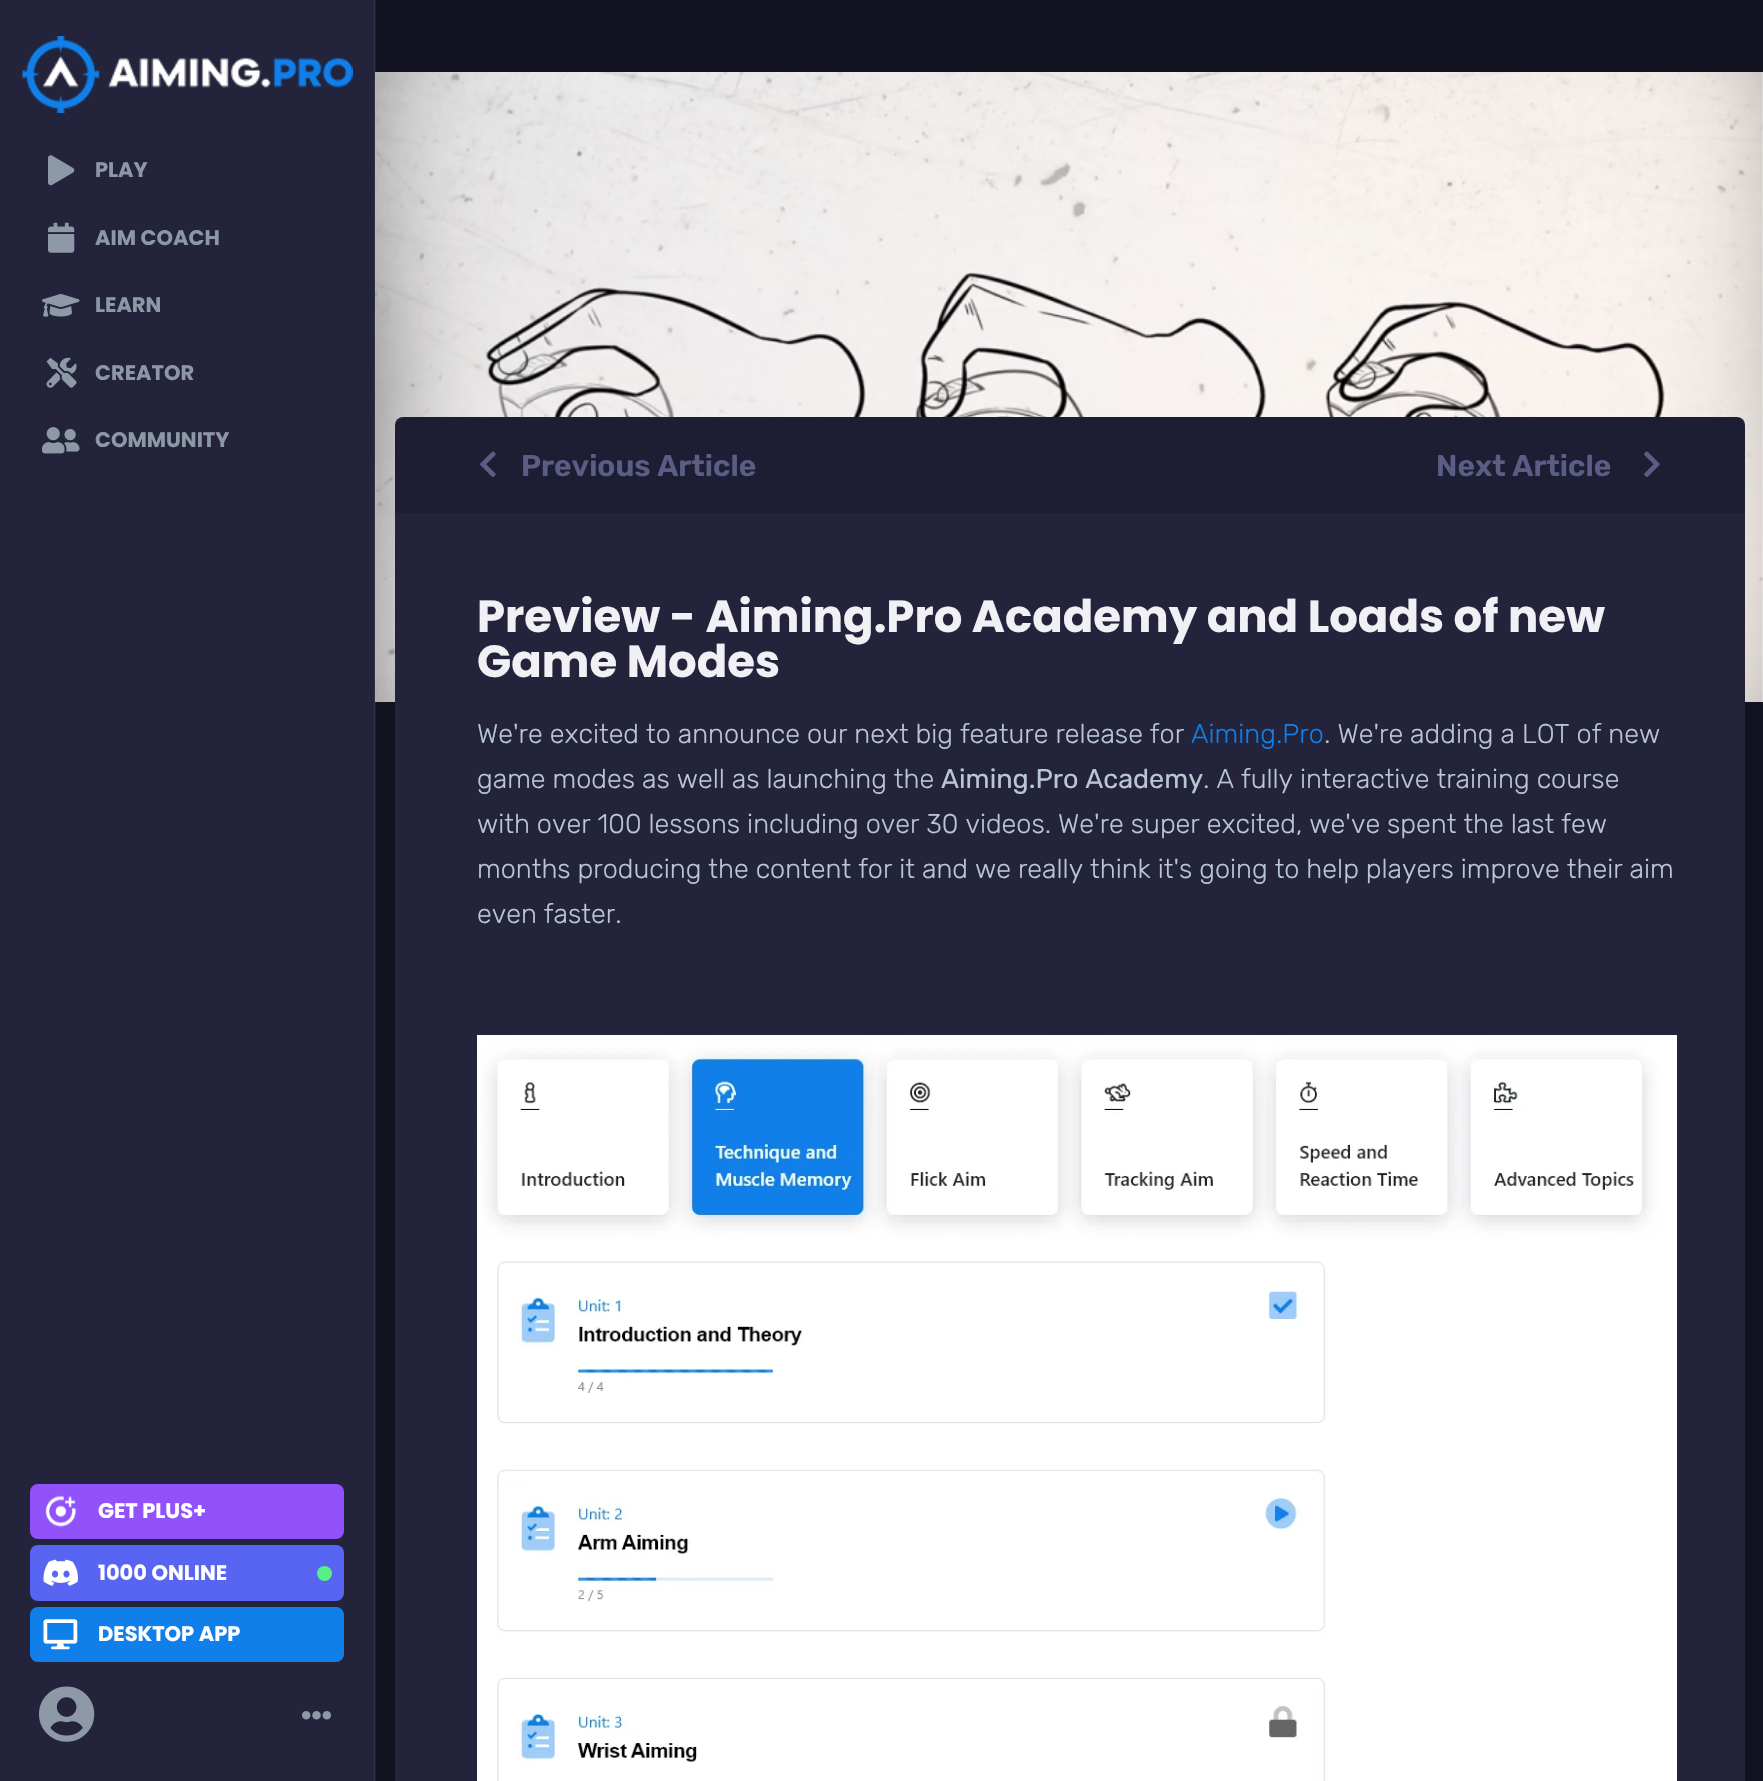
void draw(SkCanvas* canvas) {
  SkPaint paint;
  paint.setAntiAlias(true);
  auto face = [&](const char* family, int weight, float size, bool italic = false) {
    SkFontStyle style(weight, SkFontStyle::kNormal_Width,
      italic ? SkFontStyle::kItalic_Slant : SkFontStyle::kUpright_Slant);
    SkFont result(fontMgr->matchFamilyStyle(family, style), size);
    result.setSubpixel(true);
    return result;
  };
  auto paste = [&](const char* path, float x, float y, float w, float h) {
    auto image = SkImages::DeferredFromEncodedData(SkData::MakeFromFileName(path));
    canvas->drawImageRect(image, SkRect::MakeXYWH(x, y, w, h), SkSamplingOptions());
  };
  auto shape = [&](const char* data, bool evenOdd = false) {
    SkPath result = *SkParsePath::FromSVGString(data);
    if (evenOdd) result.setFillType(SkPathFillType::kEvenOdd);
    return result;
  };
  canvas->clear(0xff121220);
  paint.setColor(0xff23243b);
  canvas->drawRect(SkRect::MakeXYWH(0, 0, 375, 1781), paint);
  paste("img/12.png", 375, 72, 1388, 630);
  paint.setColor(0x0dffffff);
  canvas->drawRect(SkRect::MakeXYWH(374, 0, 2, 1781), paint);
  paste("img/1.png", 22, 36, 331, 77);
  paste("img/2.png", 48, 155, 27, 31);
  paste("img/3.png", 48, 222, 27, 31);
  paste("img/4.png", 42, 294, 38, 23);
  paste("img/5.png", 46, 357, 31, 31);
  paste("img/6.png", 42, 427, 38, 27);
  paint.setColor(0xff9152fc);
  canvas->drawRoundRect(SkRect::MakeXYWH(30, 1484, 314, 55), 8, 8, paint);
  paste("img/7.png", 45, 1495, 31, 32);
  paint.setColor(0xff5865f2);
  canvas->drawRoundRect(SkRect::MakeXYWH(30, 1545, 314, 56), 8, 8, paint);
  paste("img/8.png", 43, 1559, 35, 27);
  paint.setColor(0xff57f287);
  canvas->drawCircle(324.5f, 1573.5f, 7.5f, paint);
  paint.setColor(0xff107fea);
  canvas->drawRoundRect(SkRect::MakeXYWH(30, 1607, 314, 55), 8, 8, paint);
  paste("img/9.png", 43, 1619, 35, 31);
  paste("img/10.png", 39, 1686, 56, 56);
  paste("img/11.png", 302, 1711, 29, 9);
  paint.setColor(0xff23243b);
  canvas->drawRoundRect(SkRect::MakeXYWH(395, 417, 1350, 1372), 8, 8, paint);
  paint.setColor(0xff1d1e34);
  canvas->drawPath(shape("M407 417H1733C1739.5 417 1745 422.5 1745 429V513H395V429C395 422.5 400.5 417 407 417Z"), paint);
  paste("img/13.png", 480, 451, 16, 26);
  paste("img/14.png", 1644, 451, 16, 26);
  paste("img/15.png", 477, 1035, 1200, 746);
  auto f0 = face("Poppins", 700, 21);
  paint.setColor(0xff8d98a6);
  {
    const struct { const char* s; float x, y; } items[] = {
      {"PLAY", 95, 177},
      {"AIM COACH", 95, 245},
      {"LEARN", 95, 312},
      {"CREATOR", 95, 380},
      {"COMMUNITY", 95, 447},
    };
    for (auto [s, x, y] : items) {
      canvas->drawString(s, x, y, f0, paint);
    }
  }
  paint.setColor(0xffffffff);
  {
    const struct { const char* s; float x, y; } items[] = {
      {"GET PLUS+", 98, 1518},
      {"1000 ONLINE", 98, 1580},
      {"DESKTOP APP", 98, 1641},
    };
    for (auto [s, x, y] : items) {
      canvas->drawString(s, x, y, f0, paint);
    }
  }
  auto f1 = face("Rubik", 600, 30);
  paint.setColor(0xff5b5d85);
  canvas->drawString("Previous Article", 521, 476, f1, paint);
  canvas->drawString("Next Article", 1436, 476, f1, paint);
  auto f2 = face("Poppins", 700, 45);
  paint.setColor(0xfff0f0f5);
  canvas->drawString("Preview - Aiming.Pro Academy and Loads of new", 477, 632, f2, paint);
  canvas->drawString("Game Modes", 477, 677, f2, paint);
  auto f3 = face("Rubik", 300, 27);
  paint.setColor(0xffbac6d1);
  canvas->drawString("We're excited to announce our next big feature release for", 477, 743, f3, paint);
  paint.setColor(0xff107fea);
  canvas->drawString("Aiming.Pro", 1191, 743, f3, paint);
  paint.setColor(0xffbac6d1);
  canvas->drawString(". We're adding a LOT of new", 1324, 743, f3, paint);
  canvas->drawString("game modes as well as launching the", 477, 788, f3, paint);
  auto f4 = face("Rubik", 400, 27);
  canvas->drawString("Aiming.Pro Academy", 941, 788, f4, paint);
  {
    const struct { const char* s; float x, y; } items[] = {
      {". A fully interactive training course", 1203, 788},
      {"with over 100 lessons including over 30 videos. We're super excited, we've spent the last few", 477, 833},
      {"months producing the content for it and we really think it's going to help players improve their aim", 477, 878},
      {"even faster.", 477, 923},
    };
    for (auto [s, x, y] : items) {
      canvas->drawString(s, x, y, f3, paint);
    }
  }
}
